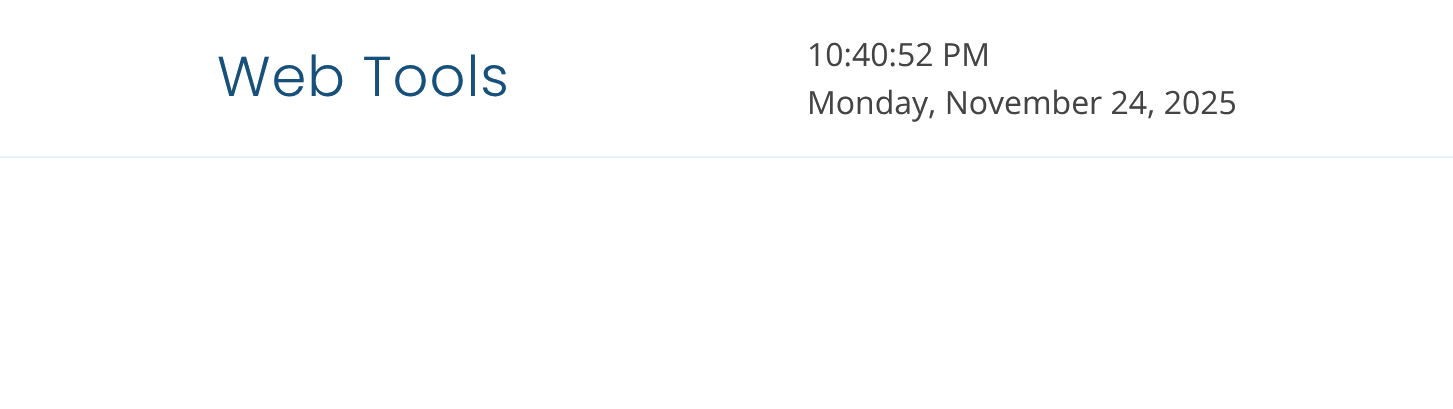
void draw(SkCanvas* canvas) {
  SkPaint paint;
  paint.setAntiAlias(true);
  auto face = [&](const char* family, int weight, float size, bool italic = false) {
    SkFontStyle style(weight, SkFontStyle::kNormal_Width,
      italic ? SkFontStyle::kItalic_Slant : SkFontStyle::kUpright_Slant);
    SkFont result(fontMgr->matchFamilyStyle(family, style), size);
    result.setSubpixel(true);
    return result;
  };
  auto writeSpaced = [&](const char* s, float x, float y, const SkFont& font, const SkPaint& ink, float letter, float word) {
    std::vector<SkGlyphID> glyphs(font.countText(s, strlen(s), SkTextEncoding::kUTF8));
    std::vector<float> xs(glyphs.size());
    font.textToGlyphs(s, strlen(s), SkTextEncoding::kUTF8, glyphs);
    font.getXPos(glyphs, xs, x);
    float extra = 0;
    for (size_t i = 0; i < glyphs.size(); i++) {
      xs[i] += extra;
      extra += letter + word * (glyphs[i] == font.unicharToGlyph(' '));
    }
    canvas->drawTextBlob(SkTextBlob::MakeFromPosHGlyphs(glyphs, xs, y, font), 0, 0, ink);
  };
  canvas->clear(0xffffffff);
  paint.setColor(0xffe6f2fb);
  canvas->drawRect(SkRect::MakeXYWH(0, 156, 1453, 2), paint);
  auto f0 = face("Poppins", 300, 56);
  paint.setColor(0xff16507b);
  writeSpaced("Web Tools", 217, 96, f0, paint, 1, 0);
  auto f1 = face("Open Sans", 400, 32);
  paint.setColor(0xff444444);
  canvas->drawString("10:40:52 PM", 807, 66, f1, paint);
  canvas->drawString("Monday, November 24, 2025", 807, 114, f1, paint);
}
